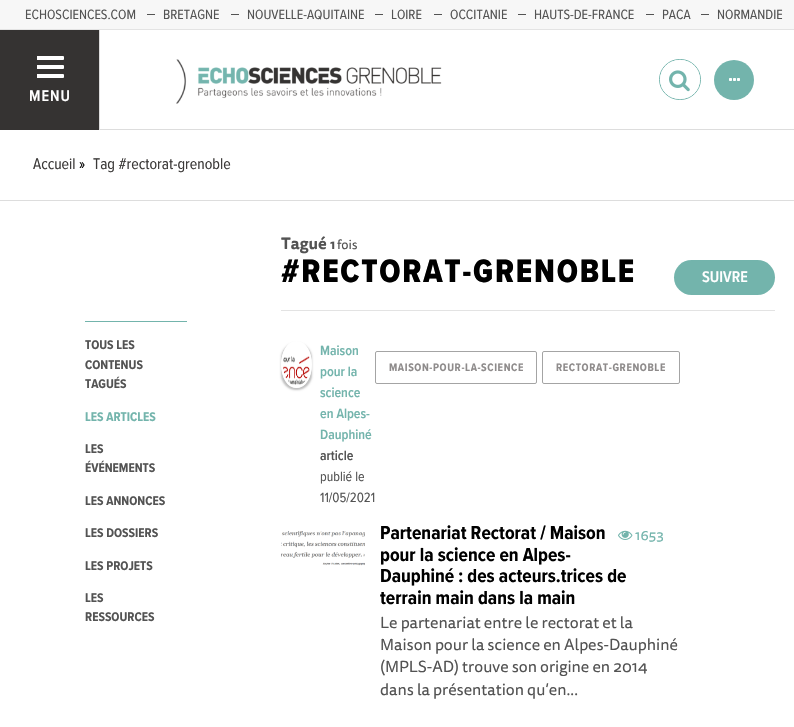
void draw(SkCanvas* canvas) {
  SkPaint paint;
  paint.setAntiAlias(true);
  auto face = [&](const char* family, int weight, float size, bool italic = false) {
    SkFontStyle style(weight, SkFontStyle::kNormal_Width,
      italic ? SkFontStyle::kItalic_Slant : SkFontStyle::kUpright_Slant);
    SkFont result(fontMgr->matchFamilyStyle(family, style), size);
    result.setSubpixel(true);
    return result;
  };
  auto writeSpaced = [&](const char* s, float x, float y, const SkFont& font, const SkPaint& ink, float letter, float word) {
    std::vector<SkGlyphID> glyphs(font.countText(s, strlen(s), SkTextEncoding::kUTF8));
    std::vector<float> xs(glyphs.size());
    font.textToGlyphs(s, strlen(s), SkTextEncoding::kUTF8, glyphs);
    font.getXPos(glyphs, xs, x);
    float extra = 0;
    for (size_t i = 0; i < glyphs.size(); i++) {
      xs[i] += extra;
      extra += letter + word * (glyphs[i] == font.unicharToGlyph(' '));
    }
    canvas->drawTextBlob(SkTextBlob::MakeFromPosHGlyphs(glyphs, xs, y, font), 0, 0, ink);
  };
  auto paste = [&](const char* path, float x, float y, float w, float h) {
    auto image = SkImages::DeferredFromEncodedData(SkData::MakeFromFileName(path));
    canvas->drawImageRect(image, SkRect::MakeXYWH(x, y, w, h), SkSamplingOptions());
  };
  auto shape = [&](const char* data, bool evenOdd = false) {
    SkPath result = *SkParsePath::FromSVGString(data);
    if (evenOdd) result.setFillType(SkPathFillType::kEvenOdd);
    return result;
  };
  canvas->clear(0xffffffff);
  {
    const struct { float x, y, w, h; SkColor color; } items[] = {
      {0, 0, 794, 29, 0xfff7f7f7},
      {0, 29, 794, 1, 0xffe3e3e3},
      {147, 14, 8, 1, 0xff535353},
      {231, 14, 8, 1, 0xff535353},
      {375, 14, 8, 1, 0xff535353},
      {434, 14, 8, 1, 0xff535353},
      {518, 14, 8, 1, 0xff535353},
      {646, 14, 8, 1, 0xff535353},
      {701, 14, 8, 1, 0xff535353},
      {100, 129, 694, 1, 0xffdddddd},
      {0, 30, 99, 100, 0xff353332},
      {99, 30, 1, 100, 0xffdddddd},
    };
    for (auto [x, y, w, h, color] : items) {
      paint.setColor(color);
      canvas->drawRect(SkRect::MakeXYWH(x, y, w, h), paint);
    }
  }
  paint.setColor(0xffffffff);
  canvas->drawRoundRect(SkRect::MakeXYWH(36, 56, 28, 4), 1, 1, paint);
  paint.setColor(0xff353332);
  canvas->drawRect(SkRect::MakeXYWH(36, 56, 1, 4), paint);
  paint.setColor(0xffffffff);
  canvas->drawRoundRect(SkRect::MakeXYWH(36, 65, 28, 4), 1, 1, paint);
  paint.setColor(0xff353332);
  canvas->drawRect(SkRect::MakeXYWH(36, 65, 1, 4), paint);
  paint.setColor(0xffffffff);
  canvas->drawRoundRect(SkRect::MakeXYWH(36, 74, 28, 4), 1, 1, paint);
  paint.setColor(0xff353332);
  canvas->drawRect(SkRect::MakeXYWH(36, 74, 1, 4), paint);
  paste("img/1.png", 176, 59, 266, 45);
  paint.setStroke(true);
  paint.setStrokeWidth(1);
  paint.setColor(0xff73b4ac);
  canvas->drawRoundRect(SkRect::MakeXYWH(659.5f, 59.5f, 41, 40), 20, 20, paint);
  paint.setStroke(false);
  paint.setColor(0xffffffff);
  canvas->drawRoundRect(SkRect::MakeXYWH(660, 60, 40, 39), 19.5f, 19.5f, paint);
  paste("img/2.png", 669, 70, 21, 22);
  paint.setColor(0xff73b4ac);
  canvas->drawCircle(734, 80, 20, paint);
  paste("img/3.png", 729, 78, 11, 3);
  paint.setColor(0xffdddddd);
  canvas->drawRect(SkRect::MakeXYWH(0, 200, 794, 1), paint);
  paint.setColor(0xff73b4ac);
  canvas->drawRect(SkRect::MakeXYWH(85, 321, 102, 1), paint);
  canvas->drawRoundRect(SkRect::MakeXYWH(674, 260, 101, 35), 17.5f, 17.5f, paint);
  paint.setColor(0xffe3e3e3);
  canvas->drawRect(SkRect::MakeXYWH(281, 310, 494, 1), paint);
  paint.setColor(0x40000000);
  paint.setMaskFilter(SkMaskFilter::MakeBlur(kNormal_SkBlurStyle, 1));
  canvas->drawRoundRect(SkRect::MakeXYWH(281, 343, 31, 47), 15.5f, 15.5f, paint);
  paint.setMaskFilter(nullptr);
  paint.setColor(0xffffffff);
  canvas->drawOval(SkRect::MakeXYWH(281, 341, 31, 47), paint);
  paint.setStroke(true);
  paint.setStrokeWidth(2);
  canvas->drawPath(shape("M296.5 342C315.5 342 315.5 387 296.5 387C277.5 387 277.5 342 296.5 342Z"), paint);
  paste("img/4.png", 283, 356, 27, 29);
  paint.setStrokeWidth(1);
  paint.setColor(0xffa4a4a4);
  canvas->drawRoundRect(SkRect::MakeXYWH(375.5f, 351.5f, 161, 32), 1.5f, 1.5f, paint);
  canvas->drawRoundRect(SkRect::MakeXYWH(542.5f, 351.5f, 137, 32), 1.5f, 1.5f, paint);
  paste("img/5.png", 281, 531, 84, 35);
  paste("img/6.png", 618, 530, 15, 10);
  auto f0 = face("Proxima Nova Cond", 400, 14);
  paint.setStroke(false);
  paint.setColor(0xff535353);
  {
    const struct { const char* s; float x, y; } items[] = {
      {"ECHOSCIENCES.COM", 25, 19},
      {"BRETAGNE", 163, 19},
      {"NOUVELLE-AQUITAINE", 247, 19},
      {"LOIRE", 391, 19},
      {"OCCITANIE", 450, 19},
      {"HAUTS-DE-FRANCE", 534, 19},
      {"PACA", 662, 19},
      {"NORMANDIE", 717, 19},
    };
    for (auto [s, x, y] : items) {
      canvas->drawString(s, x, y, f0, paint);
    }
  }
  auto f1 = face("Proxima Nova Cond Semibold", 600, 16);
  paint.setColor(0xffffffff);
  writeSpaced("MENU", 29, 101, f1, paint, 1, 0);
  auto f2 = face("Proxima Nova Cond", 400, 16);
  paint.setColor(0xff3b3938);
  canvas->drawString("Accueil", 33, 169, f2, paint);
  paint.setColor(0xff000000);
  canvas->drawString("»", 79, 169, f2, paint);
  paint.setColor(0xff3b3938);
  canvas->drawString("Tag #rectorat-grenoble", 93, 169, f2, paint);
  auto f3 = face("Proxima Nova Cond", 700, 13);
  paint.setColor(0xff535353);
  {
    const struct { const char* s; float x, y; } items[] = {
      {"TOUS LES", 85, 349},
      {"CONTENUS", 85, 369},
      {"TAGUÉS", 85, 388},
    };
    for (auto [s, x, y] : items) {
      canvas->drawString(s, x, y, f3, paint);
    }
  }
  paint.setColor(0xff73b4ac);
  canvas->drawString("LES ARTICLES", 85, 421, f3, paint);
  paint.setColor(0xff535353);
  {
    const struct { const char* s; float x, y; } items[] = {
      {"LES", 85, 453},
      {"ÉVÉNEMENTS", 85, 472},
      {"LES ANNONCES", 85, 505},
      {"LES DOSSIERS", 85, 537},
      {"LES PROJETS", 85, 570},
      {"LES", 85, 602},
      {"RESSOURCES", 85, 621},
    };
    for (auto [s, x, y] : items) {
      canvas->drawString(s, x, y, f3, paint);
    }
  }
  auto f4 = face("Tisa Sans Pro", 700, 16);
  canvas->drawString("Tagué", 281, 249, f4, paint);
  auto f5 = face("Tisa Sans Pro", 700, 13);
  canvas->drawString("1", 330, 249, f5, paint);
  auto f6 = face("Tisa Sans Pro", 400, 13);
  canvas->drawString("fois", 337, 249, f6, paint);
  auto f7 = face("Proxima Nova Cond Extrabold", 800, 33.6f);
  paint.setColor(0xff000000);
  writeSpaced("#RECTORAT-GRENOBLE", 281, 282, f7, paint, 1.7f, 0);
  paint.setColor(0xffffffff);
  canvas->drawString("SUIVRE", 702, 282, f1, paint);
  auto f8 = face("Proxima Nova Cond Semibold", 600, 14);
  paint.setColor(0xff73b4ac);
  {
    const struct { const char* s; float x, y; } items[] = {
      {"Maison", 320, 355},
      {"pour la", 320, 376},
      {"science", 320, 397},
      {"en Alpes-", 320, 418},
      {"Dauphiné", 320, 439},
    };
    for (auto [s, x, y] : items) {
      canvas->drawString(s, x, y, f8, paint);
    }
  }
  paint.setColor(0xff535353);
  canvas->drawString("article", 320, 460, f8, paint);
  canvas->drawString("publié le", 320, 481, f0, paint);
  canvas->drawString("11/05/2021", 320, 502, f0, paint);
  auto f9 = face("Proxima Nova Cond", 700, 11.25f);
  paint.setColor(0xff8e8b8b);
  writeSpaced("MAISON-POUR-LA-SCIENCE", 389, 371, f9, paint, 0.6f, 0);
  writeSpaced("RECTORAT-GRENOBLE", 556, 371, f9, paint, 0.6f, 0);
  auto f10 = face("Proxima Nova Cond", 700, 19.6f);
  paint.setColor(0xff000000);
  {
    const struct { const char* s; float x, y; } items[] = {
      {"Partenariat Rectorat / Maison", 380, 539},
      {"pour la science en Alpes-", 380, 561},
      {"Dauphiné : des acteurs.trices de", 380, 582},
      {"terrain main dans la main", 380, 604},
    };
    for (auto [s, x, y] : items) {
      canvas->drawString(s, x, y, f10, paint);
    }
  }
  auto f11 = face("Tisa Sans Pro", 400, 16);
  paint.setColor(0xff535353);
  {
    const struct { const char* s; float x, y; } items[] = {
      {"Le partenariat entre le rectorat et la", 380, 628},
      {"Maison pour la science en Alpes-Dauphiné", 380, 650},
      {"(MPLS-AD) trouve son origine en 2014", 380, 672},
      {"dans la présentation qu’en...", 380, 695},
    };
    for (auto [s, x, y] : items) {
      canvas->drawString(s, x, y, f11, paint);
    }
  }
  auto f12 = face("Tisa Sans Pro", 400, 14);
  paint.setColor(0xff73b4ac);
  canvas->drawString("1653", 635, 540, f12, paint);
}
